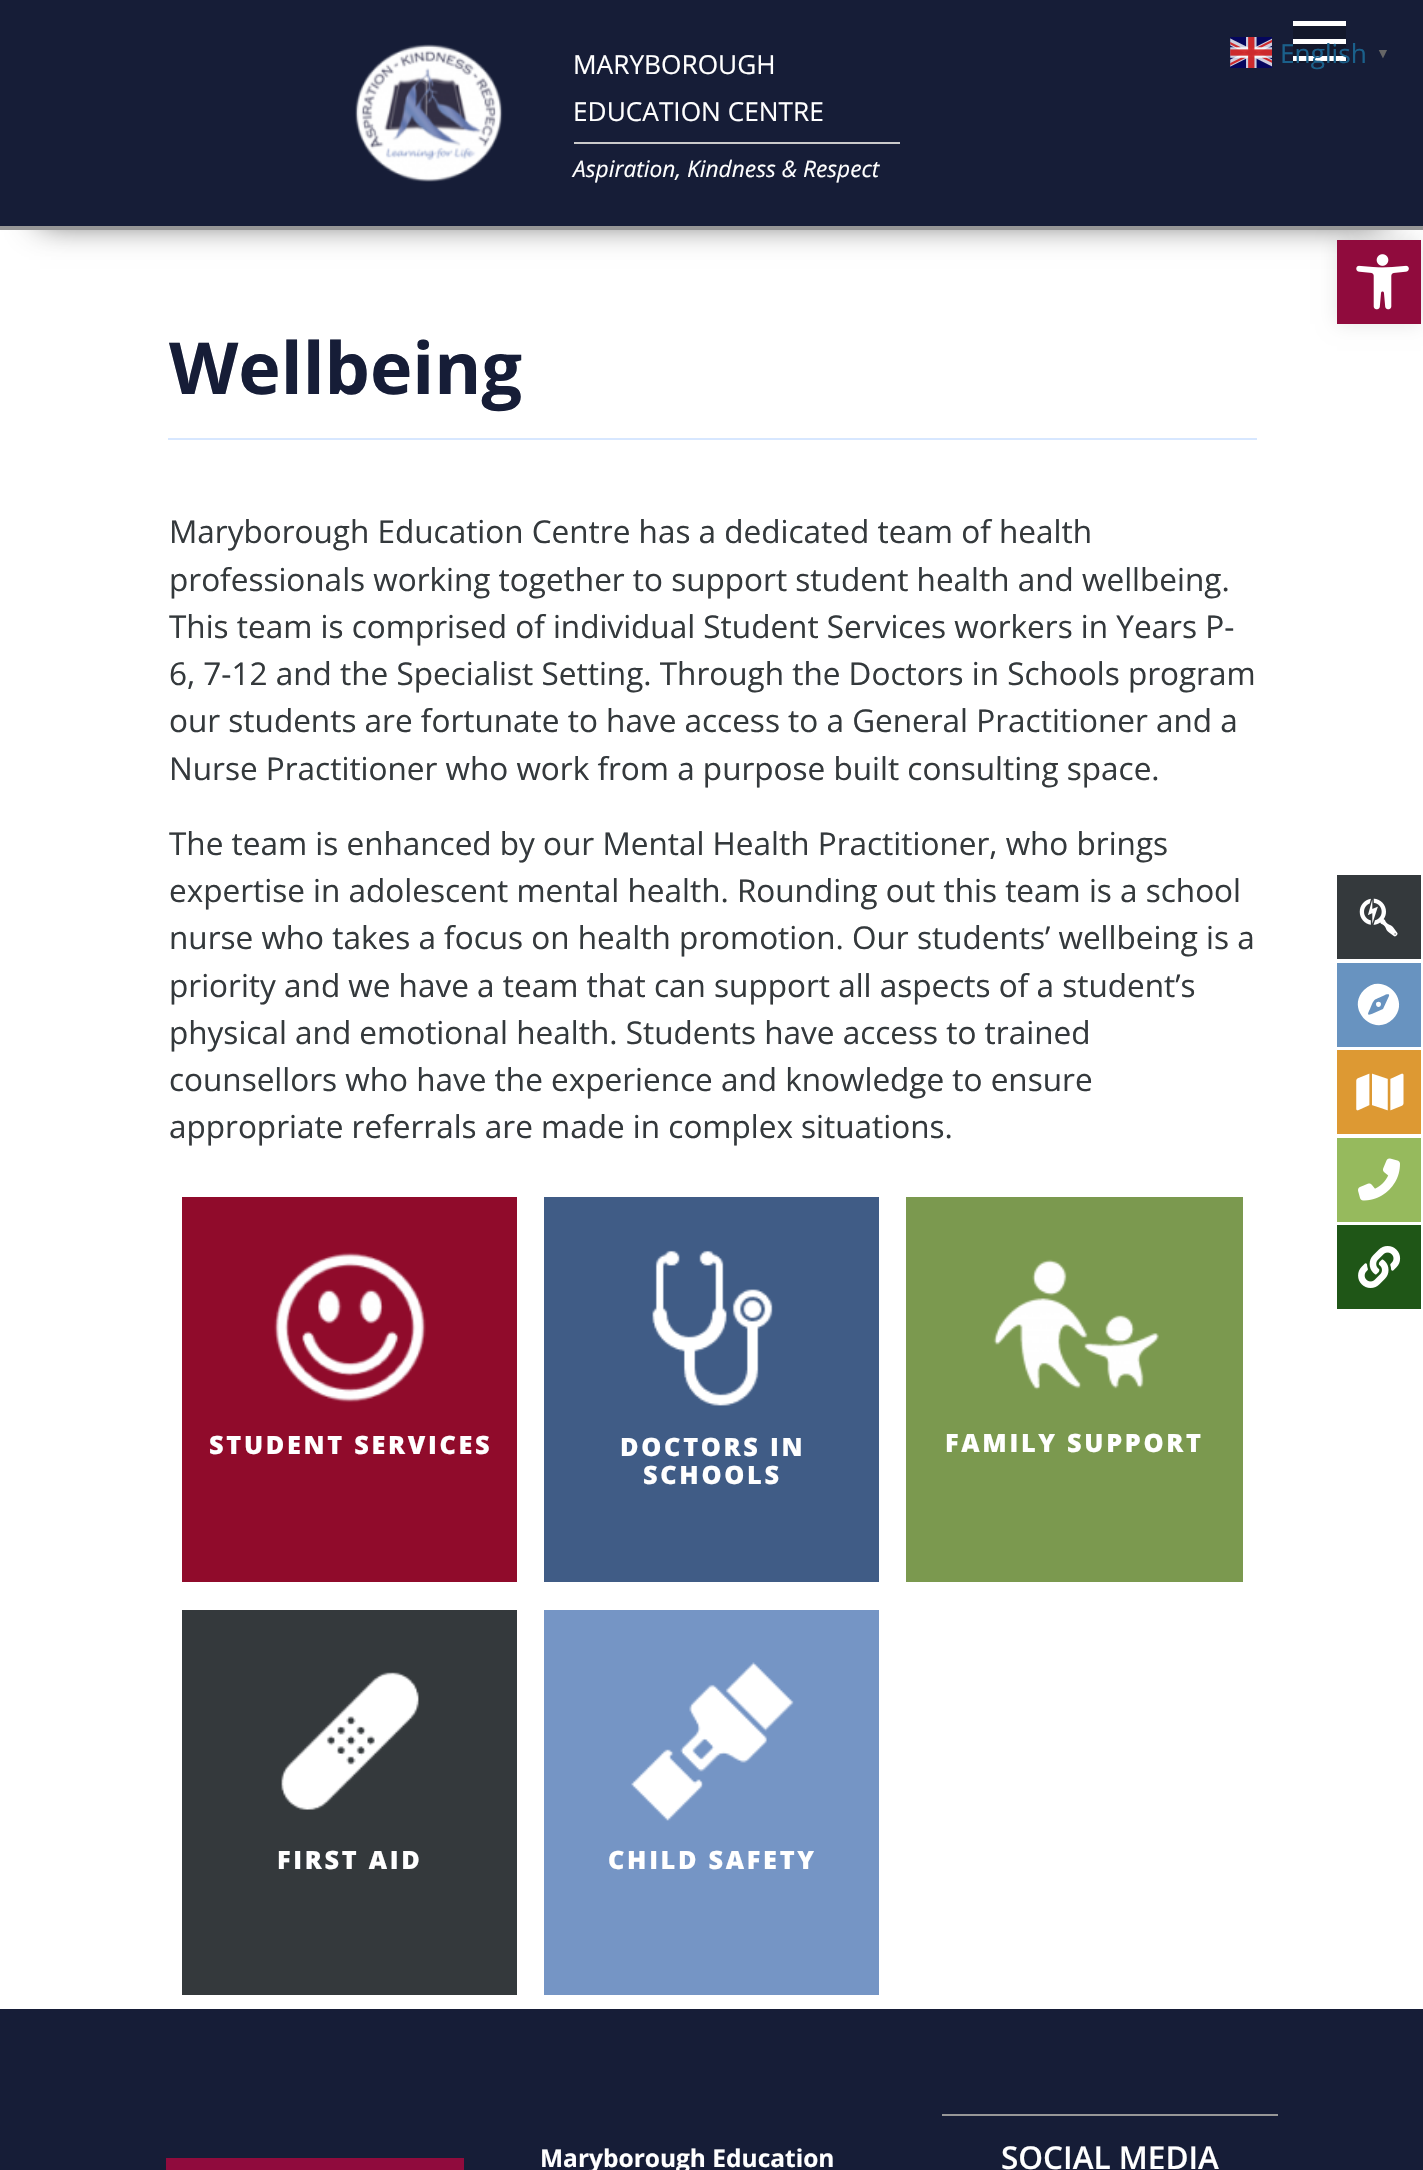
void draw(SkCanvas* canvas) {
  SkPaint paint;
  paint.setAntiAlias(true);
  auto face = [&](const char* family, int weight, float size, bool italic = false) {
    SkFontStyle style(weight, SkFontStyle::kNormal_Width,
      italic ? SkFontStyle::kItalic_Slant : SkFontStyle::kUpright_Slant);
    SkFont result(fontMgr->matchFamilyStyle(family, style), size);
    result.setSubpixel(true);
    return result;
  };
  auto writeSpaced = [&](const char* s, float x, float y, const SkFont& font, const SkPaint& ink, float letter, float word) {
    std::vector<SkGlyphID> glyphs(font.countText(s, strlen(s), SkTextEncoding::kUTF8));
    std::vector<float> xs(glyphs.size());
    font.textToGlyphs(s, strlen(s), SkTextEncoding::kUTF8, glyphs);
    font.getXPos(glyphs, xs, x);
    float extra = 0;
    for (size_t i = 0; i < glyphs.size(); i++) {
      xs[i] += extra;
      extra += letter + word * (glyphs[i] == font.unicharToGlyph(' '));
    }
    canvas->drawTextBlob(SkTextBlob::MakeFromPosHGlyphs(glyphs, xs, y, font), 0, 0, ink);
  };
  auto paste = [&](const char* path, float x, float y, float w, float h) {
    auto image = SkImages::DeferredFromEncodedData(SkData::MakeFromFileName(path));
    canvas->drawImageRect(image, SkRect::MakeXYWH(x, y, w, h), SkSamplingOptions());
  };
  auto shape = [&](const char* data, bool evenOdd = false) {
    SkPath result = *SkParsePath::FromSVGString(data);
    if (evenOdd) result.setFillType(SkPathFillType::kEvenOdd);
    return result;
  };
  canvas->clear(0xffffffff);
  paint.setColor(0xbf000000);
  paint.setMaskFilter(SkMaskFilter::MakeBlur(kNormal_SkBlurStyle, 16));
  canvas->drawRect(SkRect::MakeXYWH(40, 72, 1344, 149), paint);
  paint.setMaskFilter(nullptr);
  {
    const struct { float x, y, w, h; SkColor color; } items[] = {
      {0, 0, 1423, 226, 0xff161d37},
      {0, 226, 1423, 4, 0xff979797},
      {1293, 26, 53, 37, 0xff13182b},
      {1293, 21, 53, 5, 0xffffffff},
      {1293, 39, 53, 5, 0xffffffff},
      {1293, 56, 53, 5, 0xffffffff},
    };
    for (auto [x, y, w, h, color] : items) {
      paint.setColor(color);
      canvas->drawRect(SkRect::MakeXYWH(x, y, w, h), paint);
    }
  }
  paste("img/1.png", 355, 44, 148, 138);
  paint.setColor(0xffcacaca);
  canvas->drawRect(SkRect::MakeXYWH(574, 142, 326, 2), paint);
  paste("img/2.png", 1230, 37, 42, 31);
  paint.setColor(0x1a000000);
  paint.setMaskFilter(SkMaskFilter::MakeBlur(kNormal_SkBlurStyle, 9));
  canvas->drawRect(SkRect::MakeXYWH(1337, 240, 84, 84), paint);
  paint.setMaskFilter(nullptr);
  paint.setColor(0xff900b3d);
  canvas->drawRect(SkRect::MakeXYWH(1337, 240, 84, 84), paint);
  paste("img/3.png", 1356, 254, 53, 56);
  paint.setColor(0xffd7e7ff);
  canvas->drawRect(SkRect::MakeXYWH(168, 438, 1089, 2), paint);
  paint.setColor(0xff900b2b);
  canvas->drawRect(SkRect::MakeXYWH(182, 1197, 335, 385), paint);
  paste("img/4.png", 274, 1252, 152, 151);
  paint.setColor(0xff405c86);
  canvas->drawRect(SkRect::MakeXYWH(544, 1197, 335, 385), paint);
  paste("img/5.png", 652, 1250, 121, 156);
  paint.setColor(0xff7b994f);
  canvas->drawRect(SkRect::MakeXYWH(906, 1197, 337, 385), paint);
  paste("img/6.png", 993, 1259, 166, 131);
  paint.setColor(0xff34393c);
  canvas->drawRect(SkRect::MakeXYWH(182, 1610, 335, 385), paint);
  paste("img/7.png", 281, 1672, 138, 138);
  paint.setColor(0xff7595c5);
  canvas->drawRect(SkRect::MakeXYWH(544, 1610, 335, 385), paint);
  paste("img/8.png", 631, 1662, 163, 159);
  paint.setColor(0xff34393c);
  canvas->drawRect(SkRect::MakeXYWH(1337, 875, 84, 84), paint);
  paste("img/9.png", 1359, 898, 39, 39);
  paint.setColor(0xff6893c0);
  canvas->drawRect(SkRect::MakeXYWH(1337, 963, 84, 84), paint);
  paint.setColor(0xffffffff);
  canvas->drawPath(shape("M1376 1004C1376 1001 1381 1001 1381 1004C1381 1008 1376 1008 1376 1004ZM1364 990C1383 971 1412 1000 1393 1019C1374 1038 1345 1009 1364 990ZM1389 996C1390 993 1385 995 1385 995C1373 1001 1375 997 1370 1009C1367 1015 1367 1016 1374 1013L1383 1009Z"), paint);
  paint.setColor(0xffdd9933);
  canvas->drawRect(SkRect::MakeXYWH(1337, 1050, 84, 84), paint);
  paste("img/10.png", 1356, 1073, 48, 38);
  paint.setColor(0xff96ba5d);
  canvas->drawRect(SkRect::MakeXYWH(1337, 1138, 84, 84), paint);
  paste("img/11.png", 1358, 1158, 42, 43);
  paint.setColor(0xff1f5617);
  canvas->drawRect(SkRect::MakeXYWH(1337, 1225, 84, 84), paint);
  paste("img/12.png", 1358, 1246, 43, 42);
  {
    const struct { float x, y, w, h; SkColor color; } items[] = {
      {0, 2009, 1423, 161, 0xff161d37},
      {166, 2158, 298, 12, 0xff900b3d},
      {942, 2114, 336, 2, 0xff979797},
    };
    for (auto [x, y, w, h, color] : items) {
      paint.setColor(color);
      canvas->drawRect(SkRect::MakeXYWH(x, y, w, h), paint);
    }
  }
  auto f0 = face("Open Sans", 400, 26.25f);
  paint.setColor(0xffffffff);
  canvas->drawString("MARYBOROUGH", 573, 74, f0, paint);
  canvas->drawString("EDUCATION CENTRE", 573, 121, f0, paint);
  auto f1 = face("Open Sans", 400, 22.75f, true);
  canvas->drawString("Aspiration, Kindness & Respect", 573, 177, f1, paint);
  paint.setColor(0xff1a608b);
  canvas->drawString("English", 1280, 63, f0, paint);
  auto f2 = face("Liberation Sans", 700, 14);
  paint.setColor(0xff666666);
  canvas->drawString("▼", 1376, 58, f2, paint);
  auto f3 = face("Open Sans", 700, 71.75f);
  paint.setColor(0xff161d37);
  canvas->drawString("Wellbeing", 169, 394, f3, paint);
  auto f4 = face("Open Sans", 400, 31.5f);
  paint.setColor(0xff34393c);
  {
    const struct { const char* s; float x, y; } items[] = {
      {"Maryborough Education Centre has a dedicated team of health", 169, 543},
      {"professionals working together to support student health and wellbeing.", 169, 591},
      {"This team is comprised of individual Student Services workers in Years P-", 169, 638},
      {"6, 7-12 and the Specialist Setting. Through the Doctors in Schools program", 169, 685},
      {"our students are fortunate to have access to a General Practitioner and a", 169, 732},
      {"Nurse Practitioner who work from a purpose built consulting space.", 169, 780},
      {"The team is enhanced by our Mental Health Practitioner, who brings", 169, 855},
      {"expertise in adolescent mental health. Rounding out this team is a school", 169, 902},
      {"nurse who takes a focus on health promotion. Our students’ wellbeing is a", 169, 949},
      {"priority and we have a team that can support all aspects of a student’s", 169, 997},
      {"physical and emotional health. Students have access to trained", 169, 1044},
      {"counsellors who have the experience and knowledge to ensure", 169, 1091},
      {"appropriate referrals are made in complex situations.", 169, 1138},
    };
    for (auto [s, x, y] : items) {
      canvas->drawString(s, x, y, f4, paint);
    }
  }
  auto f5 = face("Open Sans", 800, 25.25f);
  paint.setColor(0xffffffff);
  {
    const struct { const char* s; float x, y; } items[] = {
      {"STUDENT SERVICES", 209, 1454},
      {"DOCTORS IN", 620, 1456},
      {"SCHOOLS", 643, 1484},
      {"FAMILY SUPPORT", 945, 1452},
      {"FIRST AID", 277, 1869},
      {"CHILD SAFETY", 608, 1869},
    };
    for (auto [s, x, y] : items) {
      writeSpaced(s, x, y, f5, paint, 2.7f, 0);
    }
  }
  auto f6 = face("Open Sans", 700, 24.5f);
  canvas->drawString("Maryborough Education", 540, 2167, f6, paint);
  auto f7 = face("Open Sans", 600, 31.5f);
  canvas->drawString("SOCIAL MEDIA", 1001, 2169, f7, paint);
}
